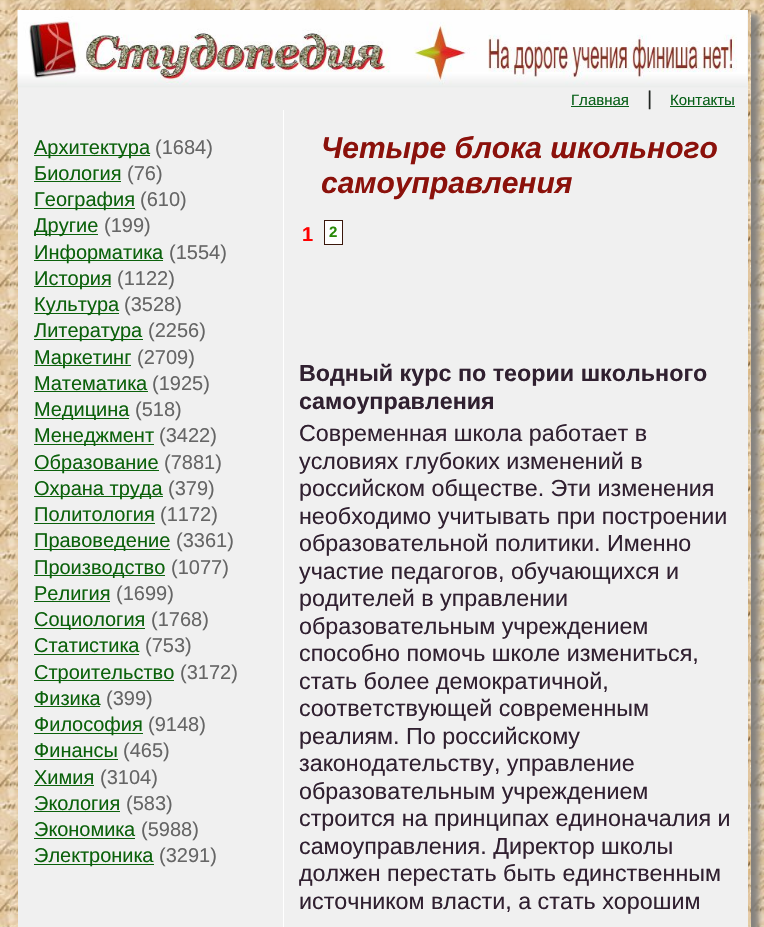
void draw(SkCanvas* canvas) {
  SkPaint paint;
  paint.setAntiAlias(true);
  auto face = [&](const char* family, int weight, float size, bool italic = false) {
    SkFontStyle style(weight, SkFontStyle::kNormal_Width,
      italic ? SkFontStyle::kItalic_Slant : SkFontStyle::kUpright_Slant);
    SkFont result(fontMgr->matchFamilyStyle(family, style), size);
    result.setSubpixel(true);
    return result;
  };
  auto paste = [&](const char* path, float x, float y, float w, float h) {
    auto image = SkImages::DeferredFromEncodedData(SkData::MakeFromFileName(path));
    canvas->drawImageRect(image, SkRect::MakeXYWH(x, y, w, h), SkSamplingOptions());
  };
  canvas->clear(0xffffffff);
  paste("img/1.png", 0, 0, 764, 927);
  canvas->save();
  canvas->clipRect(SkRect::MakeXYWH(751, 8, 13, 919));
  paint.setColor(0xe67a7a7a);
  paint.setMaskFilter(SkMaskFilter::MakeBlur(kNormal_SkBlurStyle, 3));
  canvas->drawRoundRect(SkRect::MakeXYWH(21, 14, 738, 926), 4, 4, paint);
  paint.setMaskFilter(nullptr);
  canvas->restore();
  paint.setColor(0xfff0f0f0);
  canvas->drawRect(SkRect::MakeXYWH(18, 10, 730, 917), paint);
  paste("img/2.png", 17, 10, 731, 78);
  {
    const struct { float x, y, w, h; SkColor color; } items[] = {
      {571, 106, 58, 1, 0xff076018},
      {670, 106, 65, 1, 0xff076018},
      {283, 110, 1, 817, 0xffffffff},
      {34, 155, 116, 1, 0xff0b610b},
      {34, 181, 87, 1, 0xff0b610b},
      {34, 208, 101, 1, 0xff0b610b},
      {34, 234, 64, 1, 0xff0b610b},
      {34, 260, 129, 1, 0xff0b610b},
      {34, 286, 77, 1, 0xff0b610b},
      {34, 313, 85, 1, 0xff0b610b},
      {34, 339, 109, 1, 0xff0b610b},
      {34, 365, 97, 1, 0xff0b610b},
      {34, 391, 114, 1, 0xff0b610b},
      {34, 418, 95, 1, 0xff0b610b},
      {34, 444, 120, 1, 0xff0b610b},
      {34, 470, 125, 1, 0xff0b610b},
      {34, 496, 129, 1, 0xff0b610b},
      {34, 523, 121, 1, 0xff0b610b},
      {34, 549, 136, 1, 0xff0b610b},
      {34, 575, 131, 1, 0xff0b610b},
      {34, 601, 76, 1, 0xff0b610b},
      {34, 628, 111, 1, 0xff0b610b},
      {34, 654, 105, 1, 0xff0b610b},
      {34, 680, 140, 1, 0xff0b610b},
      {34, 706, 66, 1, 0xff0b610b},
      {34, 733, 109, 1, 0xff0b610b},
      {34, 759, 84, 1, 0xff0b610b},
      {34, 785, 60, 1, 0xff0b610b},
      {34, 811, 86, 1, 0xff0b610b},
      {34, 838, 101, 1, 0xff0b610b},
      {34, 864, 120, 1, 0xff0b610b},
    };
    for (auto [x, y, w, h, color] : items) {
      paint.setColor(color);
      canvas->drawRect(SkRect::MakeXYWH(x, y, w, h), paint);
    }
  }
  paint.setColor(0xffffffff);
  canvas->drawRect(SkRect::MakeXYWH(324.5f, 220.5f, 18, 24), paint);
  paint.setStroke(true);
  paint.setStrokeWidth(1);
  paint.setColor(0xff3b170b);
  canvas->drawRect(SkRect::MakeXYWH(324.5f, 220.5f, 18, 24), paint);
  auto f0 = face("Liberation Sans", 400, 15);
  paint.setStroke(false);
  paint.setColor(0xff076018);
  canvas->drawString("Главная", 571, 105, f0, paint);
  auto f1 = face("Liberation Sans", 400, 20);
  paint.setColor(0xff202521);
  canvas->drawString("|", 647, 105, f1, paint);
  paint.setColor(0xff076018);
  canvas->drawString("Контакты", 670, 105, f0, paint);
  paint.setColor(0xff0b610b);
  canvas->drawString("Архитектура", 34, 154, f1, paint);
  paint.setColor(0xff666666);
  canvas->drawString("(1684)", 155, 154, f1, paint);
  paint.setColor(0xff0b610b);
  canvas->drawString("Биология", 34, 180, f1, paint);
  paint.setColor(0xff666666);
  canvas->drawString("(76)", 127, 180, f1, paint);
  paint.setColor(0xff0b610b);
  canvas->drawString("География", 34, 206, f1, paint);
  paint.setColor(0xff666666);
  canvas->drawString("(610)", 140, 206, f1, paint);
  paint.setColor(0xff0b610b);
  canvas->drawString("Другие", 34, 232, f1, paint);
  paint.setColor(0xff666666);
  canvas->drawString("(199)", 104, 232, f1, paint);
  paint.setColor(0xff0b610b);
  canvas->drawString("Информатика", 34, 259, f1, paint);
  paint.setColor(0xff666666);
  canvas->drawString("(1554)", 169, 259, f1, paint);
  paint.setColor(0xff0b610b);
  canvas->drawString("История", 34, 285, f1, paint);
  paint.setColor(0xff666666);
  canvas->drawString("(1122)", 117, 285, f1, paint);
  paint.setColor(0xff0b610b);
  canvas->drawString("Культура", 34, 311, f1, paint);
  paint.setColor(0xff666666);
  canvas->drawString("(3528)", 124, 311, f1, paint);
  paint.setColor(0xff0b610b);
  canvas->drawString("Литература", 34, 337, f1, paint);
  paint.setColor(0xff666666);
  canvas->drawString("(2256)", 148, 337, f1, paint);
  paint.setColor(0xff0b610b);
  canvas->drawString("Маркетинг", 34, 364, f1, paint);
  paint.setColor(0xff666666);
  canvas->drawString("(2709)", 137, 364, f1, paint);
  paint.setColor(0xff0b610b);
  canvas->drawString("Математика", 34, 390, f1, paint);
  paint.setColor(0xff666666);
  canvas->drawString("(1925)", 152, 390, f1, paint);
  paint.setColor(0xff0b610b);
  canvas->drawString("Медицина", 34, 416, f1, paint);
  paint.setColor(0xff666666);
  canvas->drawString("(518)", 135, 416, f1, paint);
  paint.setColor(0xff0b610b);
  canvas->drawString("Менеджмент", 34, 442, f1, paint);
  paint.setColor(0xff666666);
  canvas->drawString("(3422)", 159, 442, f1, paint);
  paint.setColor(0xff0b610b);
  canvas->drawString("Образование", 34, 469, f1, paint);
  paint.setColor(0xff666666);
  canvas->drawString("(7881)", 164, 469, f1, paint);
  paint.setColor(0xff0b610b);
  canvas->drawString("Охрана труда", 34, 495, f1, paint);
  paint.setColor(0xff666666);
  canvas->drawString("(379)", 168, 495, f1, paint);
  paint.setColor(0xff0b610b);
  canvas->drawString("Политология", 34, 521, f1, paint);
  paint.setColor(0xff666666);
  canvas->drawString("(1172)", 160, 521, f1, paint);
  paint.setColor(0xff0b610b);
  canvas->drawString("Правоведение", 34, 547, f1, paint);
  paint.setColor(0xff666666);
  canvas->drawString("(3361)", 176, 547, f1, paint);
  paint.setColor(0xff0b610b);
  canvas->drawString("Производство", 34, 574, f1, paint);
  paint.setColor(0xff666666);
  canvas->drawString("(1077)", 171, 574, f1, paint);
  paint.setColor(0xff0b610b);
  canvas->drawString("Религия", 34, 600, f1, paint);
  paint.setColor(0xff666666);
  canvas->drawString("(1699)", 116, 600, f1, paint);
  paint.setColor(0xff0b610b);
  canvas->drawString("Социология", 34, 626, f1, paint);
  paint.setColor(0xff666666);
  canvas->drawString("(1768)", 151, 626, f1, paint);
  paint.setColor(0xff0b610b);
  canvas->drawString("Статистика", 34, 652, f1, paint);
  paint.setColor(0xff666666);
  canvas->drawString("(753)", 145, 652, f1, paint);
  paint.setColor(0xff0b610b);
  canvas->drawString("Строительство", 34, 679, f1, paint);
  paint.setColor(0xff666666);
  canvas->drawString("(3172)", 180, 679, f1, paint);
  paint.setColor(0xff0b610b);
  canvas->drawString("Физика", 34, 705, f1, paint);
  paint.setColor(0xff666666);
  canvas->drawString("(399)", 106, 705, f1, paint);
  paint.setColor(0xff0b610b);
  canvas->drawString("Философия", 34, 731, f1, paint);
  paint.setColor(0xff666666);
  canvas->drawString("(9148)", 148, 731, f1, paint);
  paint.setColor(0xff0b610b);
  canvas->drawString("Финансы", 34, 757, f1, paint);
  paint.setColor(0xff666666);
  canvas->drawString("(465)", 123, 757, f1, paint);
  paint.setColor(0xff0b610b);
  canvas->drawString("Химия", 34, 784, f1, paint);
  paint.setColor(0xff666666);
  canvas->drawString("(3104)", 100, 784, f1, paint);
  paint.setColor(0xff0b610b);
  canvas->drawString("Экология", 34, 810, f1, paint);
  paint.setColor(0xff666666);
  canvas->drawString("(583)", 126, 810, f1, paint);
  paint.setColor(0xff0b610b);
  canvas->drawString("Экономика", 34, 836, f1, paint);
  paint.setColor(0xff666666);
  canvas->drawString("(5988)", 141, 836, f1, paint);
  paint.setColor(0xff0b610b);
  canvas->drawString("Электроника", 34, 862, f1, paint);
  paint.setColor(0xff666666);
  canvas->drawString("(3291)", 159, 862, f1, paint);
  auto f2 = face("Liberation Sans", 700, 30, true);
  paint.setColor(0xff8b110b);
  canvas->drawString("Четыре блока школьного", 321, 158, f2, paint);
  canvas->drawString("самоуправления", 321, 193, f2, paint);
  auto f3 = face("Liberation Sans", 700, 20);
  paint.setColor(0xffff0000);
  canvas->drawString("1", 302, 241, f3, paint);
  auto f4 = face("Liberation Sans", 700, 15);
  paint.setColor(0xff298a08);
  canvas->drawString("2", 329, 237, f4, paint);
  auto f5 = face("Liberation Sans", 700, 23.3f);
  paint.setColor(0xff302030);
  canvas->drawString("Водный курс по теории школьного", 299, 381, f5, paint);
  canvas->drawString("самоуправления", 299, 409, f5, paint);
  auto f6 = face("Liberation Sans", 400, 23.3f);
  {
    const struct { const char* s; float x, y; } items[] = {
      {"Современная школа работает в", 299, 441},
      {"условиях глубоких изменений в", 299, 469},
      {"российском обществе. Эти изменения", 299, 496},
      {"необходимо учитывать при построении", 299, 524},
      {"образовательной политики. Именно", 299, 551},
      {"участие педагогов, обучающихся и", 299, 579},
      {"родителей в управлении", 299, 606},
      {"образовательным учреждением", 299, 634},
      {"способно помочь школе измениться,", 299, 661},
      {"стать более демократичной,", 299, 689},
      {"соответствующей современным", 299, 716},
      {"реалиям. По российскому", 299, 744},
      {"законодательству, управление", 299, 771},
      {"образовательным учреждением", 299, 799},
      {"строится на принципах единоначалия и", 299, 826},
      {"самоуправления. Директор школы", 299, 854},
      {"должен перестать быть единственным", 299, 881},
      {"источником власти, а стать хорошим", 299, 909},
    };
    for (auto [s, x, y] : items) {
      canvas->drawString(s, x, y, f6, paint);
    }
  }
}
